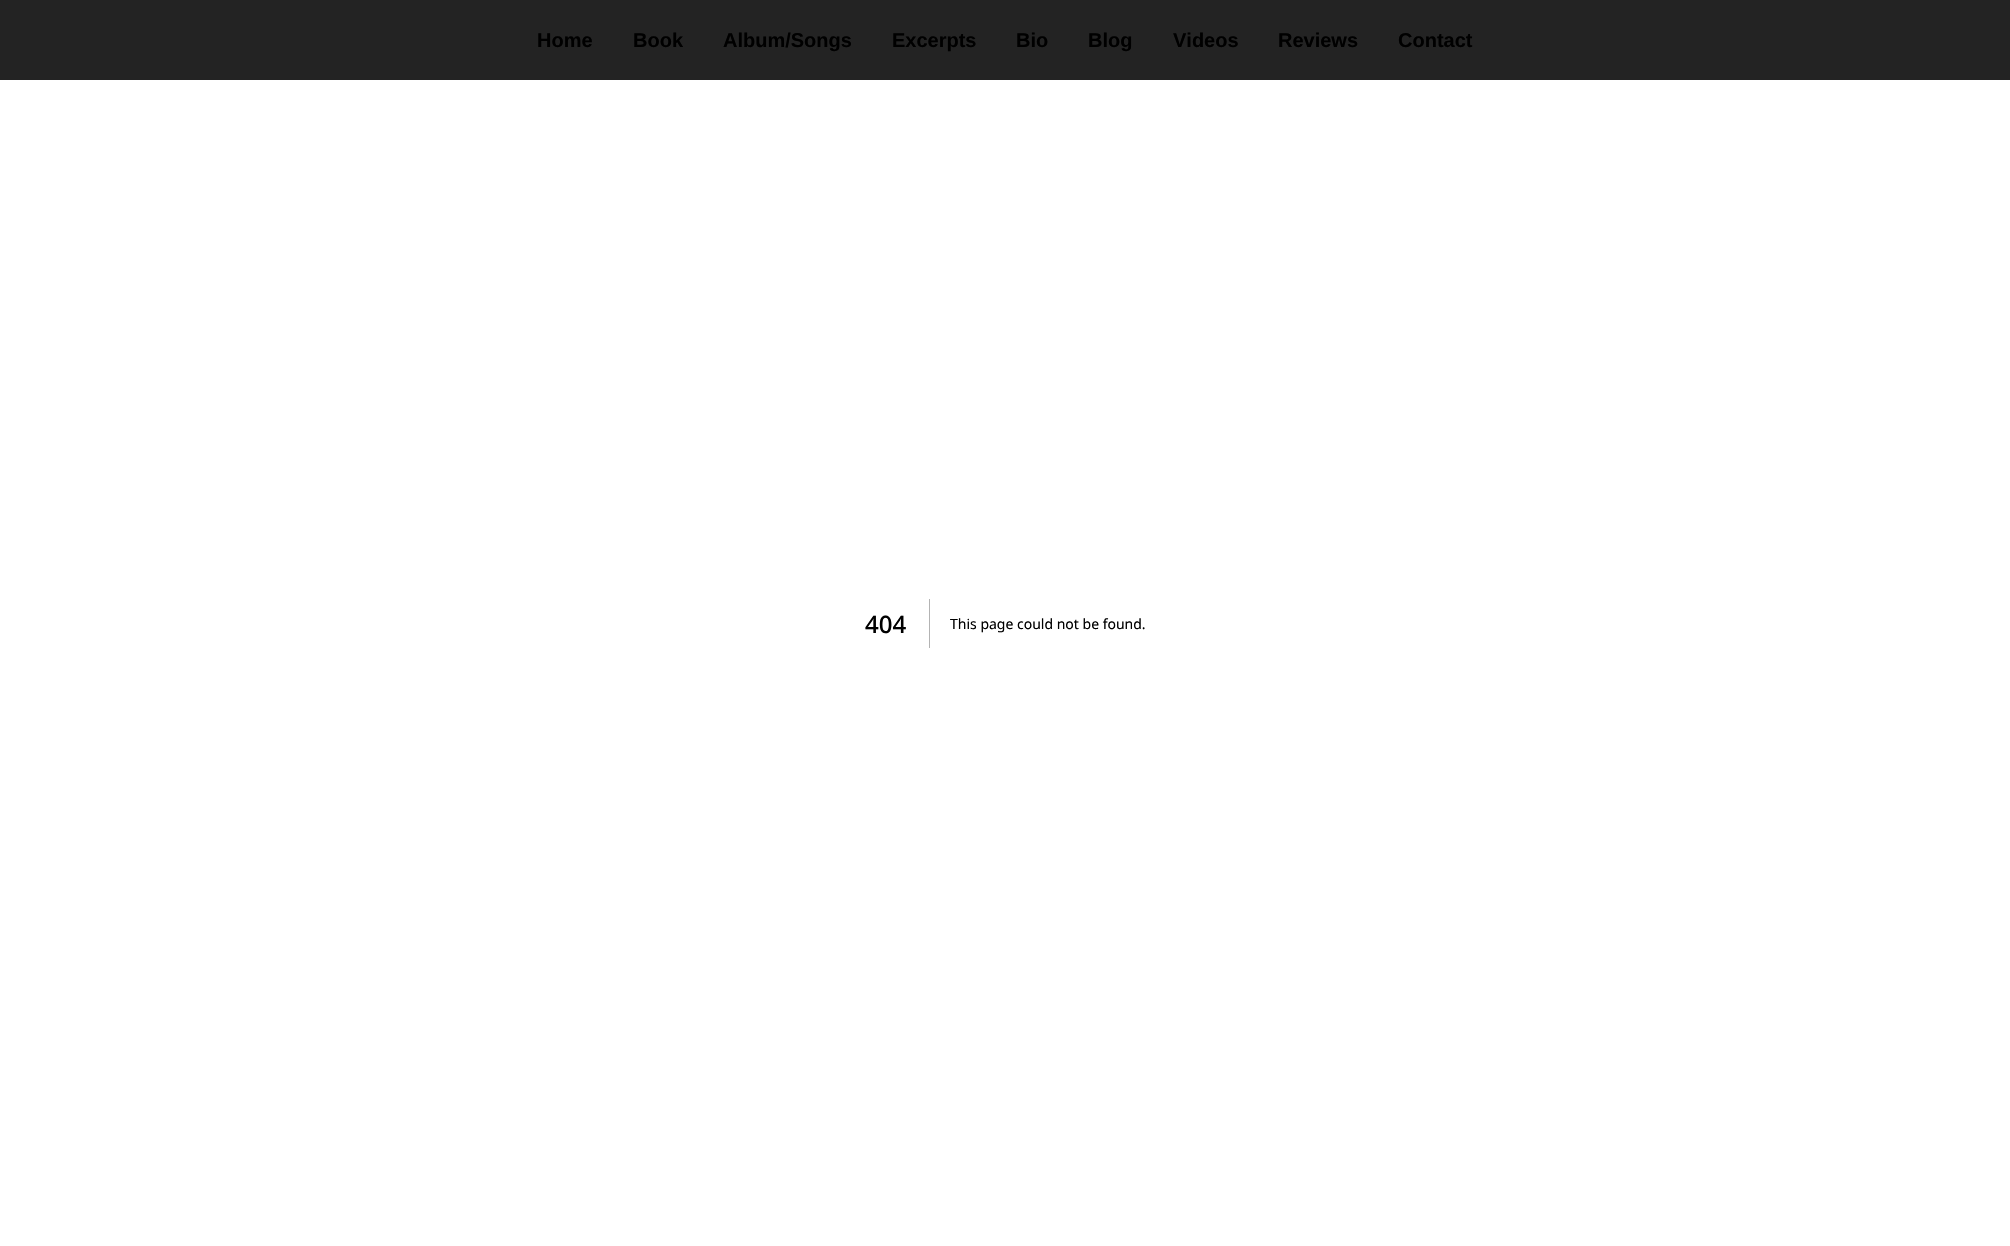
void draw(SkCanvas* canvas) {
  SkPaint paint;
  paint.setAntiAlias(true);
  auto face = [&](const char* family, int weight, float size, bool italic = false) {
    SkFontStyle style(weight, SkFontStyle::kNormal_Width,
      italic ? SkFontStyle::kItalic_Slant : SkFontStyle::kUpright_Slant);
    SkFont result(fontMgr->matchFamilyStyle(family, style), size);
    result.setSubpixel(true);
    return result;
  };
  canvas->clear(0xffffffff);
  paint.setColor(0xff232323);
  canvas->drawRect(SkRect::MakeXYWH(0, 0, 2010, 80), paint);
  paint.setColor(0xffb3b3b3);
  canvas->drawRect(SkRect::MakeXYWH(929, 599, 1, 49), paint);
  auto f0 = face("Liberation Sans", 700, 20);
  paint.setColor(0xff000000);
  {
    const struct { const char* s; float x, y; } items[] = {
      {"Home", 537, 47},
      {"Book", 633, 47},
      {"Album/Songs", 723, 47},
      {"Excerpts", 892, 47},
      {"Bio", 1016, 47},
      {"Blog", 1088, 47},
      {"Videos", 1173, 47},
      {"Reviews", 1278, 47},
      {"Contact", 1398, 47},
    };
    for (auto [s, x, y] : items) {
      canvas->drawString(s, x, y, f0, paint);
    }
  }
  auto f1 = face("Noto Sans", 500, 24);
  canvas->drawString("404", 865, 633, f1, paint);
  auto f2 = face("Noto Sans", 400, 14);
  canvas->drawString("This page could not be found.", 950, 629, f2, paint);
}
